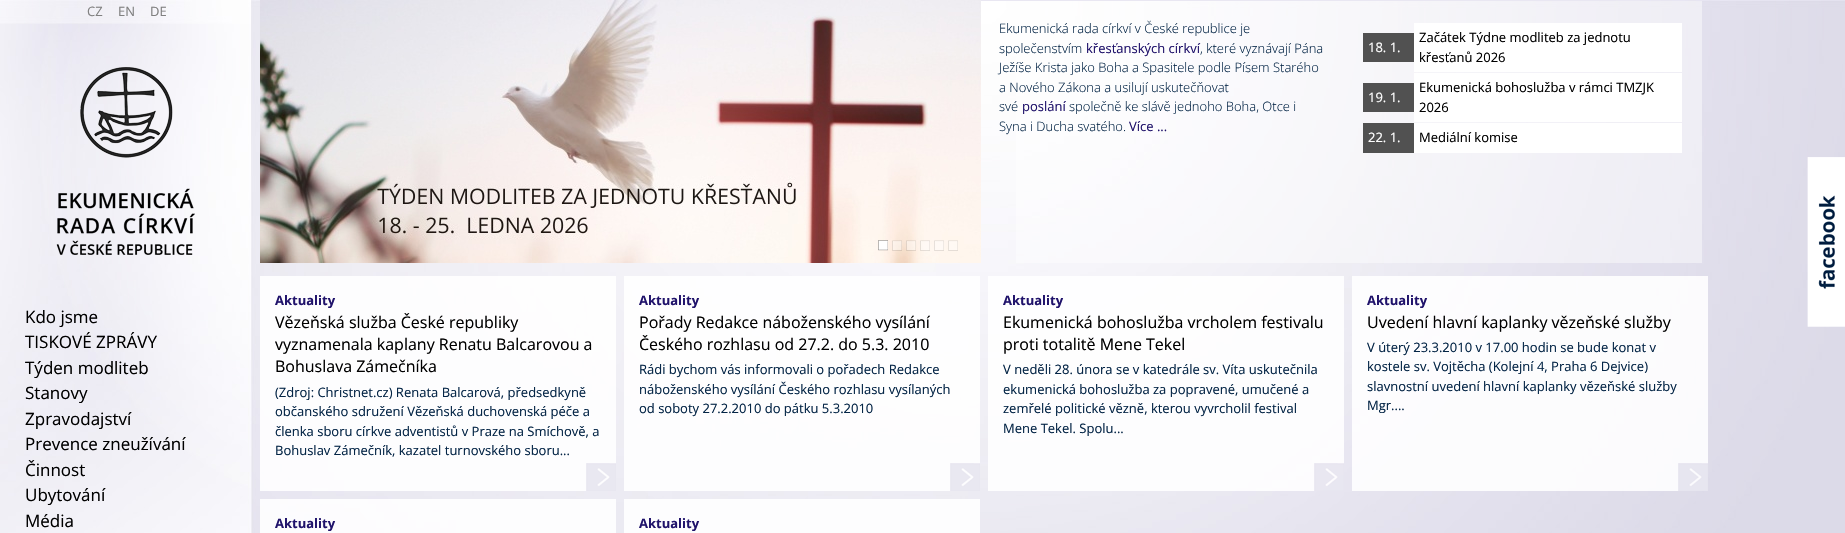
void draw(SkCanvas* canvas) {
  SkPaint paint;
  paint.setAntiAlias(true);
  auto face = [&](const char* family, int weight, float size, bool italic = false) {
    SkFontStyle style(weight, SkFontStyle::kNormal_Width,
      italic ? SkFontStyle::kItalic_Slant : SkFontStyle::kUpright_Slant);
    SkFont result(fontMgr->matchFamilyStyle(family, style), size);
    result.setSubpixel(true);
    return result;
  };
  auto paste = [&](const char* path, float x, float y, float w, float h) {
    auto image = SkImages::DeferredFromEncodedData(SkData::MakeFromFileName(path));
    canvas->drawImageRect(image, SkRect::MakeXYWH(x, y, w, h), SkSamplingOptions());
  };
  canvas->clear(0xffffffff);
  paste("img/1.png", 0, 0, 1845, 533);
  paste("img/2.png", 56, 67, 139, 188);
  paste("img/3.png", 260, 0, 721, 263);
  paste("img/4.png", 878, 240, 10, 11);
  paste("img/5.png", 892, 240, 10, 11);
  paste("img/6.png", 906, 240, 10, 11);
  paste("img/7.png", 920, 240, 10, 11);
  paste("img/8.png", 934, 240, 10, 11);
  paste("img/9.png", 948, 240, 10, 11);
  {
    const struct { float x, y, w, h; SkColor color; } items[] = {
      {1016, 1, 686, 262, 0x70ffffff},
      {981, 0, 635, 1, 0xffe9e7f2},
      {1363, 33, 51, 29, 0xff515151},
      {1414, 23, 268, 49, 0xffffffff},
      {1363, 83, 51, 29, 0xff515151},
      {1414, 73, 268, 49, 0xffffffff},
      {1363, 123, 51, 30, 0xff515151},
      {1414, 123, 268, 30, 0xffffffff},
      {260, 276, 356, 215, 0xe0ffffff},
    };
    for (auto [x, y, w, h, color] : items) {
      paint.setColor(color);
      canvas->drawRect(SkRect::MakeXYWH(x, y, w, h), paint);
    }
  }
  paste("img/10.png", 586, 463, 30, 28);
  canvas->drawRect(SkRect::MakeXYWH(624, 276, 356, 215), paint);
  paste("img/11.png", 950, 463, 30, 28);
  canvas->drawRect(SkRect::MakeXYWH(988, 276, 356, 215), paint);
  paste("img/12.png", 1314, 463, 30, 28);
  canvas->drawRect(SkRect::MakeXYWH(1352, 276, 356, 215), paint);
  paste("img/13.png", 1678, 463, 30, 28);
  canvas->drawRect(SkRect::MakeXYWH(260, 499, 356, 34), paint);
  canvas->drawRect(SkRect::MakeXYWH(624, 499, 356, 34), paint);
  paste("img/14.png", 1807, 157, 38, 170);
  auto f0 = face("Open Sans", 400, 13);
  paint.setColor(0xff808080);
  {
    const struct { const char* s; float x, y; } items[] = {
      {"CZ", 87, 16},
      {"EN", 118, 16},
      {"DE", 150, 16},
    };
    for (auto [s, x, y] : items) {
      canvas->drawString(s, x, y, f0, paint);
    }
  }
  auto f1 = face("Open Sans", 400, 17);
  paint.setColor(0xff000000);
  {
    const struct { const char* s; float x, y; } items[] = {
      {"Kdo jsme", 25, 323},
      {"TISKOVÉ ZPRÁVY", 25, 348},
      {"Týden modliteb", 25, 374},
      {"Stanovy", 25, 399},
      {"Zpravodajství", 25, 425},
      {"Prevence zneužívání", 25, 450},
      {"Činnost", 25, 476},
      {"Ubytování", 25, 501},
      {"Média", 25, 527},
    };
    for (auto [s, x, y] : items) {
      canvas->drawString(s, x, y, f1, paint);
    }
  }
  auto f2 = face("Open Sans", 300, 13);
  paint.setColor(0xff042546);
  canvas->drawString("Ekumenická rada církví v České republice je", 999, 33, f2, paint);
  canvas->drawString("společenstvím", 999, 53, f2, paint);
  paint.setColor(0xff20136b);
  canvas->drawString("křesťanských církví", 1086, 53, f0, paint);
  paint.setColor(0xff042546);
  {
    const struct { const char* s; float x, y; } items[] = {
      {", které vyznávají Pána", 1200, 53},
      {"Ježíše Krista jako Boha a Spasitele podle Písem Starého", 999, 72},
      {"a Nového Zákona a usilují uskutečňovat", 999, 92},
      {"své", 999, 111},
    };
    for (auto [s, x, y] : items) {
      canvas->drawString(s, x, y, f2, paint);
    }
  }
  paint.setColor(0xff20136b);
  canvas->drawString("poslání", 1022, 111, f0, paint);
  paint.setColor(0xff042546);
  canvas->drawString("společně ke slávě jednoho Boha, Otce i", 1069, 111, f2, paint);
  canvas->drawString("Syna i Ducha svatého.", 999, 131, f2, paint);
  paint.setColor(0xff20136b);
  canvas->drawString("Více ...", 1129, 131, f0, paint);
  paint.setColor(0xffffffff);
  canvas->drawString("18. 1.", 1368, 52, f0, paint);
  paint.setColor(0xff000000);
  canvas->drawString("Začátek Týdne modliteb za jednotu", 1419, 42, f0, paint);
  canvas->drawString("křesťanů 2026", 1419, 62, f0, paint);
  paint.setColor(0xffffffff);
  canvas->drawString("19. 1.", 1368, 102, f0, paint);
  paint.setColor(0xff000000);
  canvas->drawString("Ekumenická bohoslužba v rámci TMZJK", 1419, 92, f0, paint);
  canvas->drawString("2026", 1419, 112, f0, paint);
  paint.setColor(0xffffffff);
  canvas->drawString("22. 1.", 1368, 142, f0, paint);
  paint.setColor(0xff000000);
  canvas->drawString("Mediální komise", 1419, 142, f0, paint);
  auto f3 = face("Open Sans", 700, 13);
  paint.setColor(0xff20136b);
  canvas->drawString("Aktuality", 275, 305, f3, paint);
  auto f4 = face("Open Sans", 400, 16);
  paint.setColor(0xff000000);
  {
    const struct { const char* s; float x, y; } items[] = {
      {"Vězeňská služba České republiky", 275, 328},
      {"vyznamenala kaplany Renatu Balcarovou a", 275, 350},
      {"Bohuslava Zámečníka", 275, 372},
    };
    for (auto [s, x, y] : items) {
      canvas->drawString(s, x, y, f4, paint);
    }
  }
  paint.setColor(0xff042546);
  {
    const struct { const char* s; float x, y; } items[] = {
      {"(Zdroj: Christnet.cz) Renata Balcarová, předsedkyně", 275, 397},
      {"občanského sdružení Vězeňská duchovenská péče a", 275, 416},
      {"členka sboru církve adventistů v Praze na Smíchově, a", 275, 436},
      {"Bohuslav Zámečník, kazatel turnovského sboru...", 275, 455},
    };
    for (auto [s, x, y] : items) {
      canvas->drawString(s, x, y, f0, paint);
    }
  }
  paint.setColor(0xff20136b);
  canvas->drawString("Aktuality", 639, 305, f3, paint);
  paint.setColor(0xff000000);
  canvas->drawString("Pořady Redakce náboženského vysílání", 639, 328, f4, paint);
  canvas->drawString("Českého rozhlasu od 27.2. do 5.3. 2010", 639, 350, f4, paint);
  paint.setColor(0xff042546);
  {
    const struct { const char* s; float x, y; } items[] = {
      {"Rádi bychom vás informovali o pořadech Redakce", 639, 374},
      {"náboženského vysílání Českého rozhlasu vysílaných", 639, 394},
      {"od soboty 27.2.2010 do pátku 5.3.2010", 639, 413},
    };
    for (auto [s, x, y] : items) {
      canvas->drawString(s, x, y, f0, paint);
    }
  }
  paint.setColor(0xff20136b);
  canvas->drawString("Aktuality", 1003, 305, f3, paint);
  paint.setColor(0xff000000);
  canvas->drawString("Ekumenická bohoslužba vrcholem festivalu", 1003, 328, f4, paint);
  canvas->drawString("proti totalitě Mene Tekel", 1003, 350, f4, paint);
  paint.setColor(0xff042546);
  {
    const struct { const char* s; float x, y; } items[] = {
      {"V neděli 28. února se v katedrále sv. Víta uskutečnila", 1003, 374},
      {"ekumenická bohoslužba za popravené, umučené a", 1003, 394},
      {"zemřelé politické vězně, kterou vyvrcholil festival", 1003, 413},
      {"Mene Tekel. Spolu...", 1003, 433},
    };
    for (auto [s, x, y] : items) {
      canvas->drawString(s, x, y, f0, paint);
    }
  }
  paint.setColor(0xff20136b);
  canvas->drawString("Aktuality", 1367, 305, f3, paint);
  paint.setColor(0xff000000);
  canvas->drawString("Uvedení hlavní kaplanky vězeňské služby", 1367, 328, f4, paint);
  paint.setColor(0xff042546);
  {
    const struct { const char* s; float x, y; } items[] = {
      {"V úterý 23.3.2010 v 17.00 hodin se bude konat v", 1367, 352},
      {"kostele sv. Vojtěcha (Kolejní 4, Praha 6 Dejvice)", 1367, 371},
      {"slavnostní uvedení hlavní kaplanky vězeňské služby", 1367, 391},
      {"Mgr....", 1367, 410},
    };
    for (auto [s, x, y] : items) {
      canvas->drawString(s, x, y, f0, paint);
    }
  }
  paint.setColor(0xff20136b);
  canvas->drawString("Aktuality", 275, 528, f3, paint);
  canvas->drawString("Aktuality", 639, 528, f3, paint);
}
